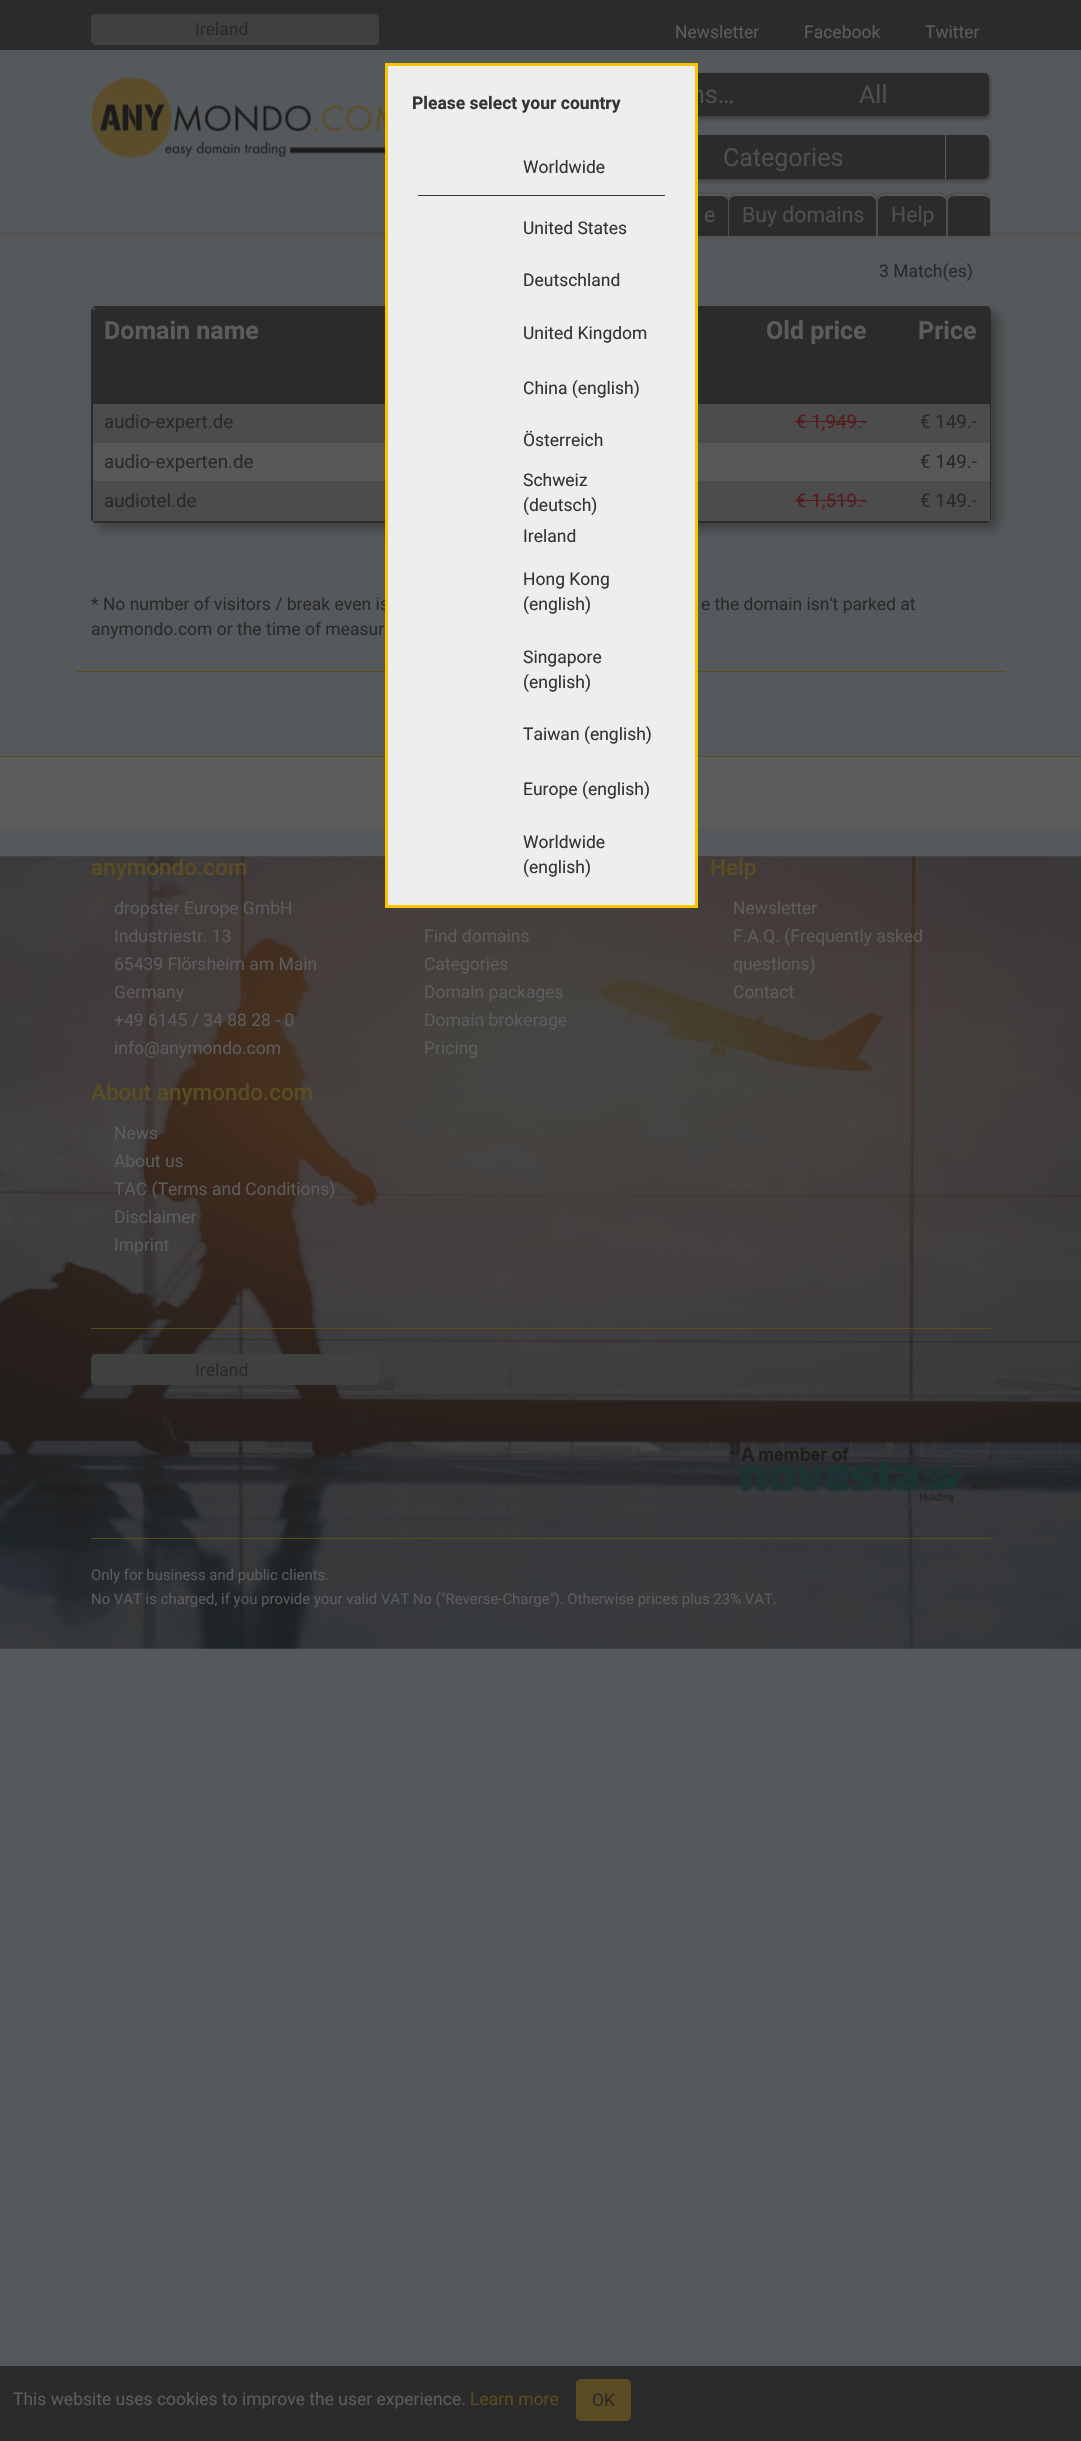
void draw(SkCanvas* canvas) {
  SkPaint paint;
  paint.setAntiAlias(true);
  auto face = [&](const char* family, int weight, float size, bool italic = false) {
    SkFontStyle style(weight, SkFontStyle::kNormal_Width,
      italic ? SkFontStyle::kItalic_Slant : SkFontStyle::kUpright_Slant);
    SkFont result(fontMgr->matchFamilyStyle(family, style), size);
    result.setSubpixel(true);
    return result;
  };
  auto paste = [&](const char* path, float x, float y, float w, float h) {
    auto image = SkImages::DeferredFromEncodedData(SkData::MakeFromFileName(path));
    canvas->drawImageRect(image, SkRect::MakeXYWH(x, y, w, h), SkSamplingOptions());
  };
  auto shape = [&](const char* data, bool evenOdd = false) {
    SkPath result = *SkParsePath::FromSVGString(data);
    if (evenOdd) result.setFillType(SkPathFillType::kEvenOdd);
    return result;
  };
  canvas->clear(0xff55595b);
  paint.setColor(0xff2a2b2a);
  canvas->drawRect(SkRect::MakeXYWH(0, 0, 1081, 50), paint);
  paint.setColor(0xff3f413f);
  canvas->drawPath(shape("M350 14H374C377 14 379 16 379 19V40C379 43 377 45 374 45H350Z"), paint);
  canvas->drawPath(shape("M96 14H351V45H96C93 45 91 43 91 40V19C91 16 93 14 96 14Z"), paint);
  paint.setColor(0xff555555);
  canvas->drawRect(SkRect::MakeXYWH(0, 231, 1081, 7), paint);
  paste("img/1.png", 91, 77, 294, 81);
  paint.setColor(0xff3c3c3c);
  paint.setMaskFilter(SkMaskFilter::MakeBlur(kNormal_SkBlurStyle, 2));
  canvas->drawRoundRect(SkRect::MakeXYWH(553, 75, 437, 44), 5, 5, paint);
  paint.setMaskFilter(nullptr);
  paint.setColor(0xff2a2b2a);
  canvas->drawRoundRect(SkRect::MakeXYWH(551, 73, 438, 43), 5, 5, paint);
  paint.setColor(0xff3c3c3c);
  paint.setMaskFilter(SkMaskFilter::MakeBlur(kNormal_SkBlurStyle, 2));
  canvas->drawRoundRect(SkRect::MakeXYWH(553, 138, 437, 43), 5, 5, paint);
  paint.setMaskFilter(nullptr);
  paint.setColor(0xff2a2b2a);
  canvas->drawRoundRect(SkRect::MakeXYWH(551, 135, 438, 44), 5, 5, paint);
  paint.setColor(0xff5c5c5c);
  canvas->drawRect(SkRect::MakeXYWH(945, 135, 1, 44), paint);
  paint.setColor(0xff2a2b2a);
  canvas->drawPath(shape("M653 193H721C725.5 193 729 196.5 729 201V236H645V201C645 196.5 648.5 193 653 193Z"), paint);
  paint.setColor(0xff595959);
  canvas->drawPath(shape("M652 196H721C725 196 728 199 728 202C728 191 719 194 710 194H664C655 194 646 191 646 202C646 199 649 196 652 196Z"), paint);
  paint.setColor(0xff525252);
  canvas->drawPath(shape("M652 192H721C725 192 729 196 729 200V236H645V200C645 196 648 192 652 192ZM652 194H721C725 194 728 197 728 200V236H646V200C646 197 649 194 652 194Z", true), paint);
  paint.setColor(0xff2a2b2a);
  canvas->drawPath(shape("M736 193H870C874.5 193 878 196.5 878 201V236H728V201C728 196.5 731.5 193 736 193Z"), paint);
  paint.setColor(0xff595959);
  canvas->drawPath(shape("M735 196H870C873 196 876 199 876 202V200C876 197 873 194 870 194H735C732 194 729 197 729 200V202C729 199 732 196 735 196Z"), paint);
  paint.setColor(0xff525252);
  canvas->drawPath(shape("M735 192H870C874 192 878 196 878 200V236H728V200C728 196 731 192 735 192ZM735 194H870C873 194 876 197 876 200V236H729V200C729 197 732 194 735 194Z", true), paint);
  paint.setColor(0xff2a2b2a);
  canvas->drawPath(shape("M884 193H940C944.5 193 948 196.5 948 201V236H876V201C876 196.5 879.5 193 884 193Z"), paint);
  paint.setColor(0xff595959);
  canvas->drawPath(shape("M884 196H940C943 196 946 199 946 202C946 192 939 194 931 194H893C885 194 878 192 878 202C878 199 880 196 884 196Z"), paint);
  paint.setColor(0xff525252);
  canvas->drawPath(shape("M884 192H940C944 192 948 196 948 200V236H876V200C876 196 880 192 884 192ZM884 194H940C943 194 946 197 946 200V236H878V200C878 197 880 194 884 194Z", true), paint);
  paint.setColor(0xff2a2b2a);
  canvas->drawPath(shape("M954 193H983C987.5 193 991 196.5 991 201V236H946V201C946 196.5 949.5 193 954 193Z"), paint);
  paint.setColor(0xff595959);
  canvas->drawPath(shape("M954 196H984C987 196 990 199 990 202C990 194 986 194 979 194H959C952 194 948 194 948 202C948 199 950 196 954 196Z"), paint);
  paint.setColor(0xff525252);
  canvas->drawPath(shape("M954 192H984C988 192 991 196 991 200V236H946V200C946 196 950 192 954 192ZM954 194H984C987 194 990 197 990 200V236H948V200C948 197 950 194 954 194Z", true), paint);
  paint.setColor(0xff3c3c3c);
  paint.setMaskFilter(SkMaskFilter::MakeBlur(kNormal_SkBlurStyle, 6));
  canvas->drawRoundRect(SkRect::MakeXYWH(98, 313, 900, 216), 5, 5, paint);
  paint.setMaskFilter(nullptr);
  paint.setColor(0xff2a2b2a);
  canvas->drawRoundRect(SkRect::MakeXYWH(91.5f, 306.5f, 899, 216), 4.5f, 4.5f, paint);
  paint.setStroke(true);
  paint.setStrokeWidth(1);
  canvas->drawRoundRect(SkRect::MakeXYWH(91.5f, 306.5f, 899, 216), 4.5f, 4.5f, paint);
  paint.setStroke(false);
  paint.setColor(0xff4c4c4c);
  canvas->drawRect(SkRect::MakeXYWH(93, 308, 5, 5), paint);
  paint.setColor(0xff2a2b2a);
  canvas->drawPath(shape("M98 308H370V355H93V313C93 310 95 308 98 308Z"), paint);
  {
    const struct { float x, y, w, h; SkColor color; } items[] = {
      {93, 404, 897, 39, 0xff4c4c4c},
      {795, 421, 71, 1, 0xff561c1c},
      {93, 443, 897, 38, 0xff585858},
      {93, 481, 897, 40, 0xff4c4c4c},
      {795, 500, 71, 1, 0xff561c1c},
      {0, 757, 1081, 71, 0xff5c5c5c},
      {0, 756, 1081, 1, 0xff5a4d1c},
      {76, 671, 929, 1, 0xff5a4d1c},
    };
    for (auto [x, y, w, h, color] : items) {
      paint.setColor(color);
      canvas->drawRect(SkRect::MakeXYWH(x, y, w, h), paint);
    }
  }
  paste("img/2.png", 0, 856, 1081, 793);
  canvas->drawRect(SkRect::MakeXYWH(91, 1328, 900, 1), paint);
  paint.setColor(0xff3f413f);
  canvas->drawPath(shape("M96 1354H351V1385H96C93 1385 91 1383 91 1380V1359C91 1356 93 1354 96 1354Z"), paint);
  canvas->drawPath(shape("M350 1354H374C377 1354 379 1356 379 1359V1380C379 1383 377 1385 374 1385H350Z"), paint);
  paste("img/3.png", 741, 1447, 226, 56);
  paint.setColor(0xff5a4d1c);
  canvas->drawRect(SkRect::MakeXYWH(91, 1538, 900, 1), paint);
  paint.setColor(0xff2a2b2a);
  canvas->drawRect(SkRect::MakeXYWH(0, 2366, 1081, 75), paint);
  paint.setColor(0xff5b4d23);
  canvas->drawRoundRect(SkRect::MakeXYWH(576.5f, 2379.5f, 54, 41), 4.5f, 4.5f, paint);
  paint.setStroke(true);
  paint.setColor(0xff5b4c1d);
  canvas->drawRoundRect(SkRect::MakeXYWH(576.5f, 2379.5f, 54, 41), 4.5f, 4.5f, paint);
  auto f0 = face("Roboto", 400, 17.5f);
  paint.setStroke(false);
  paint.setColor(0xff292929);
  canvas->drawString("Ireland", 195, 35, f0, paint);
  paint.setColor(0xff5c5c5c);
  {
    const struct { const char* s; float x, y; } items[] = {
      {"Newsletter", 675, 38},
      {"Facebook", 804, 38},
      {"Twitter", 925, 38},
    };
    for (auto [s, x, y] : items) {
      canvas->drawString(s, x, y, f0, paint);
    }
  }
  auto f1 = face("Roboto", 400, 25);
  paint.setColor(0xff4f4f4f);
  {
    const struct { const char* s; float x, y; } items[] = {
      {"ns…", 691, 103},
      {"All", 859, 103},
      {"Categories", 723, 166},
    };
    for (auto [s, x, y] : items) {
      canvas->drawString(s, x, y, f1, paint);
    }
  }
  auto f2 = face("Roboto", 400, 21.25f);
  {
    const struct { const char* s; float x, y; } items[] = {
      {"e", 704, 222},
      {"Buy domains", 742, 222},
      {"Help", 891, 222},
    };
    for (auto [s, x, y] : items) {
      canvas->drawString(s, x, y, f2, paint);
    }
  }
  paint.setColor(0xff292929);
  canvas->drawString("3 Match(es)", 879, 277, f0, paint);
  auto f3 = face("Roboto", 700, 25);
  paint.setColor(0xff5c5c5c);
  {
    const struct { const char* s; float x, y; } items[] = {
      {"Domain name", 104, 339},
      {"Old price", 766, 339},
      {"Price", 918, 339},
    };
    for (auto [s, x, y] : items) {
      canvas->drawString(s, x, y, f3, paint);
    }
  }
  auto f4 = face("Roboto", 400, 18.75f);
  paint.setColor(0xff292929);
  canvas->drawString("audio-expert.de", 104, 428, f4, paint);
  paint.setColor(0xff561c1c);
  canvas->drawString("€ 1,949.-", 796, 428, f4, paint);
  paint.setColor(0xff292929);
  {
    const struct { const char* s; float x, y; } items[] = {
      {"€ 149.-", 920, 428},
      {"audio-experten.de", 104, 468},
      {"€ 149.-", 920, 468},
      {"audiotel.de", 104, 507},
    };
    for (auto [s, x, y] : items) {
      canvas->drawString(s, x, y, f4, paint);
    }
  }
  paint.setColor(0xff561c1c);
  canvas->drawString("€ 1,519.-", 796, 507, f4, paint);
  paint.setColor(0xff292929);
  canvas->drawString("€ 149.-", 920, 507, f4, paint);
  {
    const struct { const char* s; float x, y; } items[] = {
      {"* No number of visitors / break even is", 91, 610},
      {"e the domain isn't parked at", 701, 610},
      {"anymondo.com or the time of measur", 91, 635},
    };
    for (auto [s, x, y] : items) {
      canvas->drawString(s, x, y, f0, paint);
    }
  }
  auto f5 = face("Roboto", 500, 22.5f);
  paint.setColor(0xff5b4d23);
  canvas->drawString("anymondo.com", 91, 875, f5, paint);
  paint.setColor(0xff5c5c5c);
  {
    const struct { const char* s; float x, y; } items[] = {
      {"dropster Europe GmbH", 114, 914},
      {"Industriestr. 13", 114, 942},
      {"65439 Flörsheim am Main", 114, 970},
      {"Germany", 114, 998},
      {"+49 6145 / 34 88 28 - 0", 114, 1026},
      {"info@anymondo.com", 114, 1054},
      {"Find domains", 424, 942},
      {"Categories", 424, 970},
      {"Domain packages", 424, 998},
      {"Domain brokerage", 424, 1026},
      {"Pricing", 424, 1054},
    };
    for (auto [s, x, y] : items) {
      canvas->drawString(s, x, y, f0, paint);
    }
  }
  paint.setColor(0xff5b4d23);
  canvas->drawString("Help", 710, 875, f5, paint);
  paint.setColor(0xff5c5c5c);
  {
    const struct { const char* s; float x, y; } items[] = {
      {"Newsletter", 733, 914},
      {"F.A.Q. (Frequently asked", 733, 942},
      {"questions)", 733, 970},
      {"Contact", 733, 998},
    };
    for (auto [s, x, y] : items) {
      canvas->drawString(s, x, y, f0, paint);
    }
  }
  paint.setColor(0xff5b4d23);
  canvas->drawString("About anymondo.com", 91, 1100, f5, paint);
  paint.setColor(0xff5c5c5c);
  {
    const struct { const char* s; float x, y; } items[] = {
      {"News", 114, 1139},
      {"About us", 114, 1167},
      {"TAC (Terms and Conditions)", 114, 1195},
      {"Disclaimer", 114, 1223},
      {"Imprint", 114, 1251},
    };
    for (auto [s, x, y] : items) {
      canvas->drawString(s, x, y, f0, paint);
    }
  }
  paint.setColor(0xff292929);
  canvas->drawString("Ireland", 195, 1376, f0, paint);
  auto f6 = face("Roboto", 400, 14.9f);
  paint.setColor(0xff5c5c5c);
  canvas->drawString("Only for business and public clients.", 91, 1580, f6, paint);
  canvas->drawString("No VAT is charged, if you provide your valid VAT No (\"Reverse-Charge\"). Otherwise prices plus 23% VAT.", 91, 1604, f6, paint);
  canvas->drawString("This website uses cookies to improve the user experience.", 13, 2405, f0, paint);
  paint.setColor(0xff5a4d1c);
  canvas->drawString("Learn more", 470, 2405, f0, paint);
  paint.setColor(0xff292929);
  canvas->drawString("OK", 592, 2406, f0, paint);
  paint.setColor(0xffeeeeee);
  canvas->drawRect(SkRect::MakeXYWH(386.5f, 64.5f, 310, 842), paint);
  paint.setStroke(true);
  paint.setStrokeWidth(3);
  paint.setColor(0xfff8c400);
  canvas->drawRect(SkRect::MakeXYWH(386.5f, 64.5f, 310, 842), paint);
  auto f7 = face("Roboto", 700, 17.5f);
  paint.setStroke(false);
  paint.setColor(0xff333333);
  canvas->drawString("Please select your country", 412, 109, f7, paint);
  canvas->drawString("Worldwide", 523, 173, f0, paint);
  paint.setColor(0xff383c38);
  canvas->drawRect(SkRect::MakeXYWH(418, 195, 247, 1), paint);
  paint.setColor(0xff333333);
  {
    const struct { const char* s; float x, y; } items[] = {
      {"United States", 523, 234},
      {"Deutschland", 523, 286},
      {"United Kingdom", 523, 339},
      {"China (english)", 523, 394},
      {"Österreich", 523, 446},
      {"Schweiz", 523, 486},
      {"(deutsch)", 523, 511},
      {"Ireland", 523, 542},
      {"Hong Kong", 523, 585},
      {"(english)", 523, 610},
      {"Singapore", 523, 663},
      {"(english)", 523, 688},
      {"Taiwan (english)", 523, 740},
      {"Europe (english)", 523, 795},
      {"Worldwide", 523, 848},
      {"(english)", 523, 873},
    };
    for (auto [s, x, y] : items) {
      canvas->drawString(s, x, y, f0, paint);
    }
  }
}
